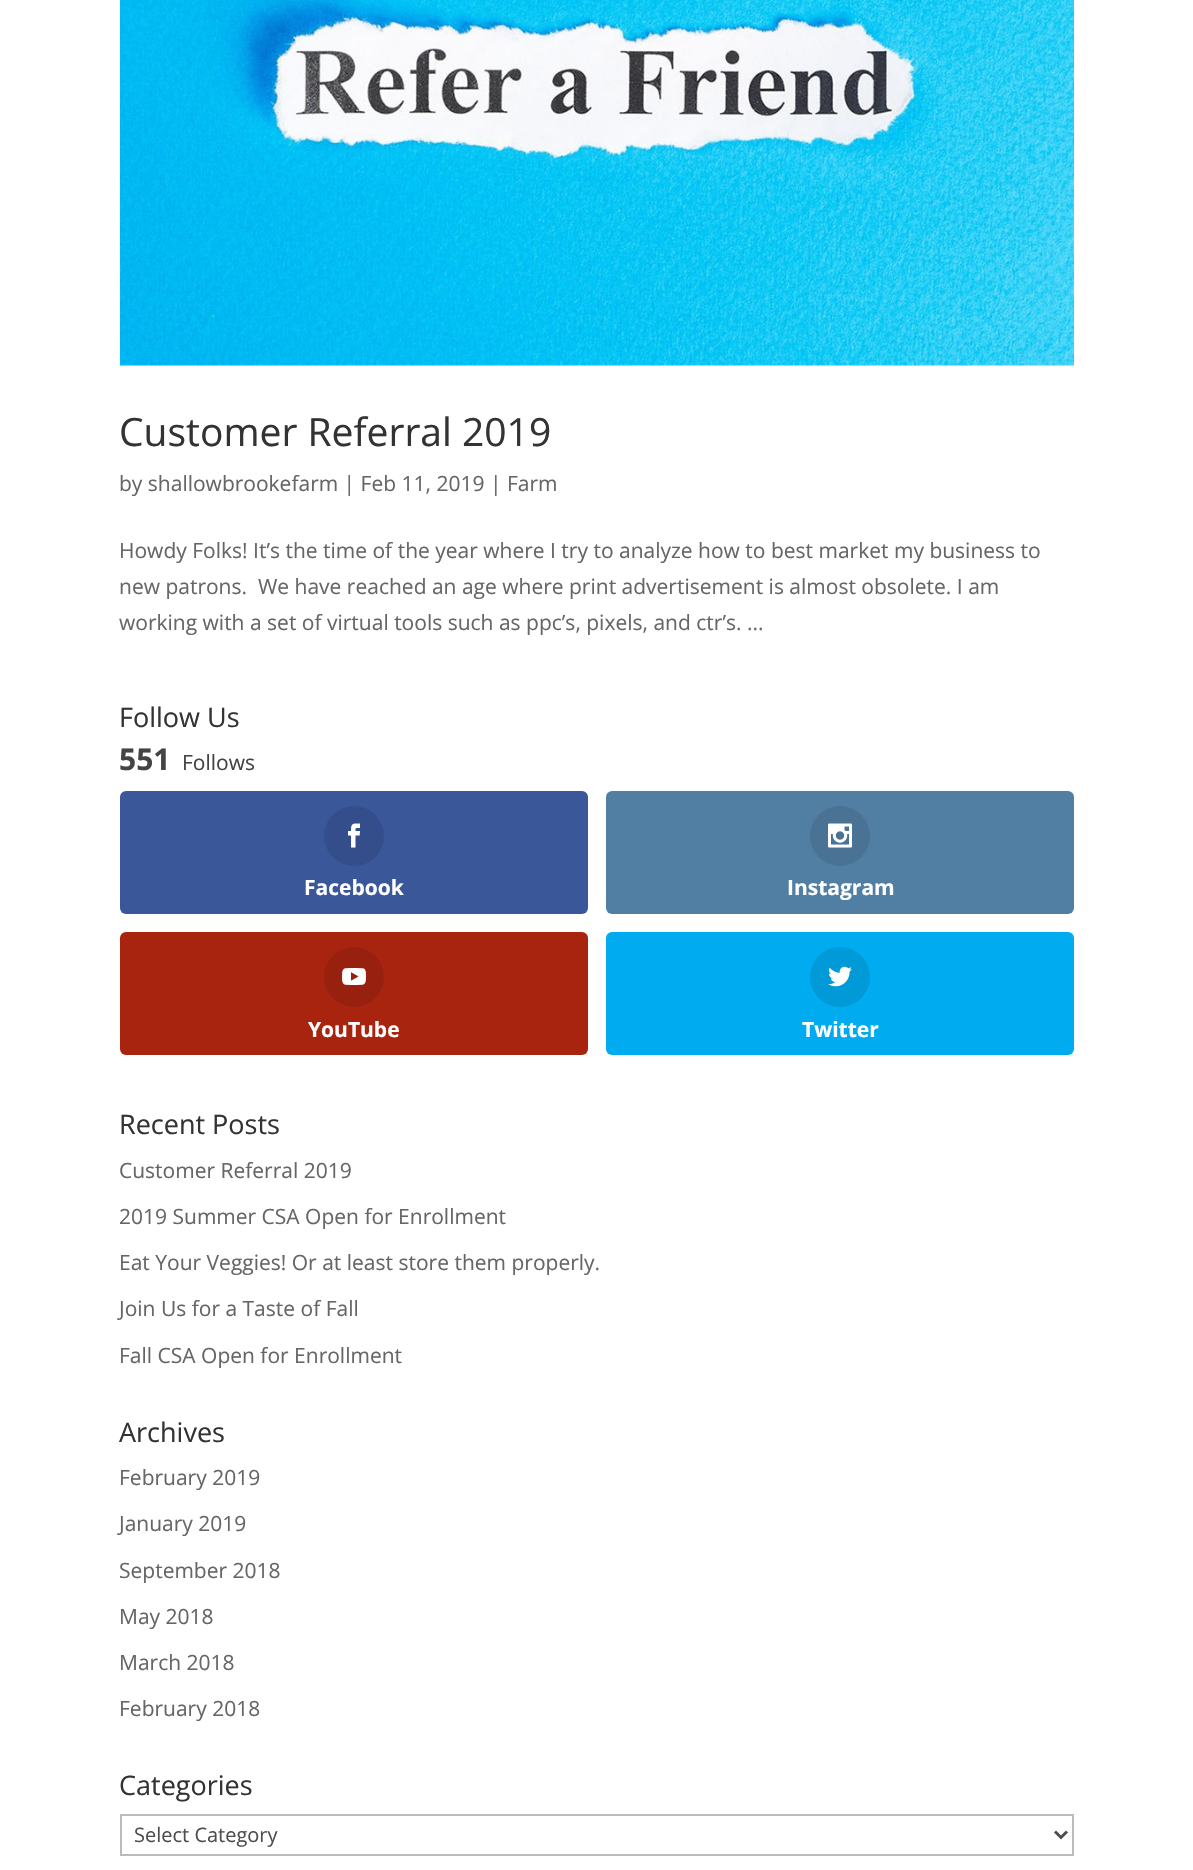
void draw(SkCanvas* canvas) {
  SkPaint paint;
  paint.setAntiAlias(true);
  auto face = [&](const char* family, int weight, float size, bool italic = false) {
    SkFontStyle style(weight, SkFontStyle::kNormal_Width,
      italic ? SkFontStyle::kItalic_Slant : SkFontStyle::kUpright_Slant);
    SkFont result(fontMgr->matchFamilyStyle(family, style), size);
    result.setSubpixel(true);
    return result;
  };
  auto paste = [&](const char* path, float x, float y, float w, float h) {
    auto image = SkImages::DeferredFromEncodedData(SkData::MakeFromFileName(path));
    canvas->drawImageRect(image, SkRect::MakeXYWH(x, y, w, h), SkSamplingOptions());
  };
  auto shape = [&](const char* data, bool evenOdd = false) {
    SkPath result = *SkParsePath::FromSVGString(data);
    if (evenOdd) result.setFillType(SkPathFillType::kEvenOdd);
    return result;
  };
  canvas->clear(0xffffffff);
  paste("img/1.png", 120, 0, 954, 366);
  paint.setColor(0xff3a579a);
  canvas->drawRoundRect(SkRect::MakeXYWH(120, 791, 468, 123), 6, 6, paint);
  paint.setColor(0xff344e8b);
  canvas->drawCircle(354, 836, 30, paint);
  paste("img/2.png", 348, 823, 13, 25);
  paint.setColor(0xff517fa4);
  canvas->drawRoundRect(SkRect::MakeXYWH(606, 791, 468, 123), 6, 6, paint);
  paint.setColor(0xff497294);
  canvas->drawCircle(840, 836, 30, paint);
  paste("img/3.png", 828, 823, 24, 25);
  paint.setColor(0xffa8240f);
  canvas->drawRoundRect(SkRect::MakeXYWH(120, 932, 468, 123), 6, 6, paint);
  paint.setColor(0xff97200e);
  canvas->drawCircle(354, 977, 30, paint);
  paste("img/4.png", 342, 968, 24, 17);
  paint.setColor(0xff00abf0);
  canvas->drawRoundRect(SkRect::MakeXYWH(606, 932, 468, 123), 6, 6, paint);
  paint.setColor(0xff009ad8);
  canvas->drawCircle(840, 977, 30, paint);
  paste("img/5.png", 828, 966, 24, 21);
  paint.setStroke(true);
  paint.setStrokeWidth(2);
  paint.setColor(0xffbbbbbb);
  canvas->drawRect(SkRect::MakeXYWH(121, 1815, 952, 40), paint);
  paint.setStrokeWidth(3);
  paint.setColor(0xff4e4e4e);
  canvas->drawPath(shape("M1055 1831.5L1061 1837.5L1067 1831.5"), paint);
  auto f0 = face("Open Sans", 400, 39);
  paint.setStroke(false);
  paint.setColor(0xff333333);
  canvas->drawString("Customer Referral 2019", 119, 446, f0, paint);
  auto f1 = face("Open Sans", 400, 21);
  paint.setColor(0xff666666);
  {
    const struct { const char* s; float x, y; } items[] = {
      {"by shallowbrookefarm | Feb 11, 2019 | Farm", 119, 491},
      {"Howdy Folks! It’s the time of the year where I try to analyze how to best market my business to", 119, 558},
      {"new patrons.  We have reached an age where print advertisement is almost obsolete. I am", 119, 594},
      {"working with a set of virtual tools such as ppc’s, pixels, and ctr’s. ...", 119, 630},
    };
    for (auto [s, x, y] : items) {
      canvas->drawString(s, x, y, f1, paint);
    }
  }
  auto f2 = face("Open Sans", 400, 27);
  paint.setColor(0xff333333);
  canvas->drawString("Follow Us", 119, 727, f2, paint);
  auto f3 = face("Open Sans", 700, 30);
  paint.setColor(0xff444444);
  canvas->drawString("551", 119, 770, f3, paint);
  canvas->drawString("Follows", 182, 770, f1, paint);
  auto f4 = face("Open Sans", 700, 21);
  paint.setColor(0xffffffff);
  {
    const struct { const char* s; float x, y; } items[] = {
      {"Facebook", 304, 895},
      {"Instagram", 787, 895},
      {"YouTube", 308, 1037},
      {"Twitter", 802, 1037},
    };
    for (auto [s, x, y] : items) {
      canvas->drawString(s, x, y, f4, paint);
    }
  }
  paint.setColor(0xff333333);
  canvas->drawString("Recent Posts", 119, 1134, f2, paint);
  paint.setColor(0xff666666);
  {
    const struct { const char* s; float x, y; } items[] = {
      {"Customer Referral 2019", 119, 1178},
      {"2019 Summer CSA Open for Enrollment", 119, 1224},
      {"Eat Your Veggies! Or at least store them properly.", 119, 1270},
      {"Join Us for a Taste of Fall", 119, 1316},
      {"Fall CSA Open for Enrollment", 119, 1363},
    };
    for (auto [s, x, y] : items) {
      canvas->drawString(s, x, y, f1, paint);
    }
  }
  paint.setColor(0xff333333);
  canvas->drawString("Archives", 119, 1442, f2, paint);
  paint.setColor(0xff666666);
  {
    const struct { const char* s; float x, y; } items[] = {
      {"February 2019", 119, 1485},
      {"January 2019", 119, 1531},
      {"September 2018", 119, 1578},
      {"May 2018", 119, 1624},
      {"March 2018", 119, 1670},
      {"February 2018", 119, 1716},
    };
    for (auto [s, x, y] : items) {
      canvas->drawString(s, x, y, f1, paint);
    }
  }
  paint.setColor(0xff333333);
  canvas->drawString("Categories", 119, 1795, f2, paint);
  auto f5 = face("Open Sans", 400, 20);
  paint.setColor(0xff4e4e4e);
  canvas->drawString("Select Category", 134, 1842, f5, paint);
}
